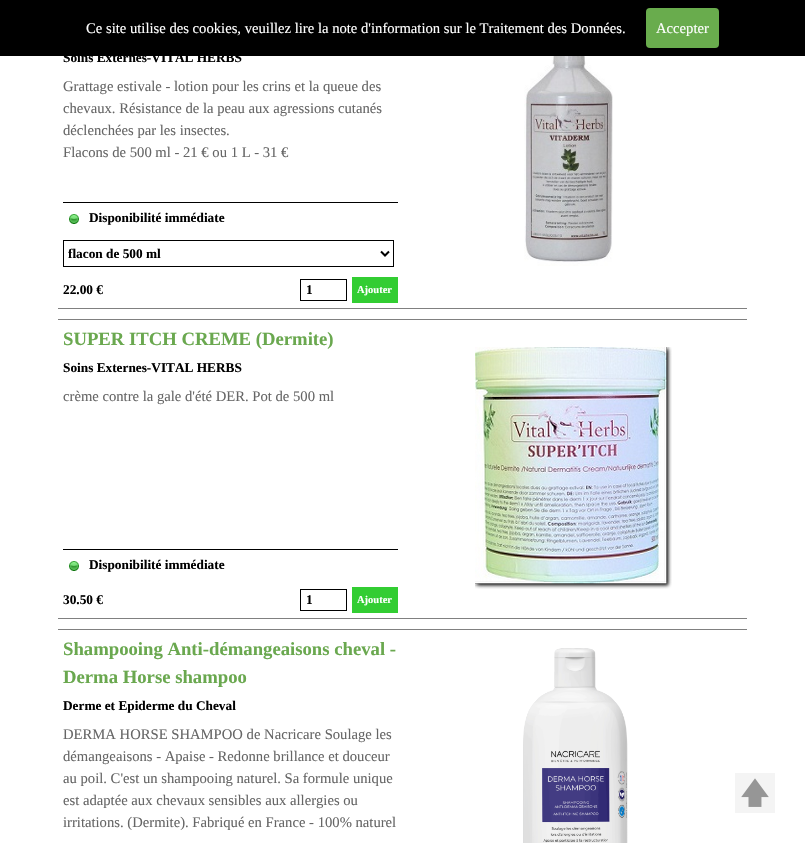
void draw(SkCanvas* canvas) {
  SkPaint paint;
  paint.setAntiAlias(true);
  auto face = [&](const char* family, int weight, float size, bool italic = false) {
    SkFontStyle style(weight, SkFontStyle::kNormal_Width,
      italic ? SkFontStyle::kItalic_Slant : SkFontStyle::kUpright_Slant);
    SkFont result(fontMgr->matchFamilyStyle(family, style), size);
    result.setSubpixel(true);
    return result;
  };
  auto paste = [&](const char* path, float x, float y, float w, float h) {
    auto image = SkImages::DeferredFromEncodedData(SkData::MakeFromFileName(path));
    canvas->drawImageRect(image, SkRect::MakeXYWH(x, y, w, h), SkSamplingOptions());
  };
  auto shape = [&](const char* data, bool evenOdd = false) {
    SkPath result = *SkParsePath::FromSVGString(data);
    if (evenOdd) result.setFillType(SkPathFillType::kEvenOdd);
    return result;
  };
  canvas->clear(0xffffffff);
  paint.setColor(0xff000000);
  canvas->drawRect(SkRect::MakeXYWH(0, 0, 805, 56), paint);
  paint.setColor(0xff69ac4d);
  canvas->drawRoundRect(SkRect::MakeXYWH(646, 8, 73, 40), 4, 4, paint);
  paint.setColor(0xff808080);
  canvas->drawRect(SkRect::MakeXYWH(58, 308, 689, 1), paint);
  paste("img/1.png", 524, 56, 89, 210);
  paint.setColor(0xff000000);
  canvas->drawRect(SkRect::MakeXYWH(63, 202, 335, 1), paint);
  paste("img/2.png", 69, 214, 10, 10);
  paint.setStroke(true);
  paint.setStrokeWidth(1);
  canvas->drawRect(SkRect::MakeXYWH(63.5f, 240.5f, 330, 26), paint);
  paint.setStrokeWidth(2);
  canvas->drawPath(shape("M381 251.5L385 255.5L389 251.5"), paint);
  paint.setStrokeWidth(1);
  canvas->drawRect(SkRect::MakeXYWH(300.5f, 279.5f, 46, 21), paint);
  paint.setStroke(false);
  {
    const struct { float x, y, w, h; SkColor color; } items[] = {
      {352, 277, 46, 26, 0xff32cd32},
      {58, 319, 689, 1, 0xff808080},
      {58, 618, 689, 1, 0xff808080},
    };
    for (auto [x, y, w, h, color] : items) {
      paint.setColor(color);
      canvas->drawRect(SkRect::MakeXYWH(x, y, w, h), paint);
    }
  }
  paste("img/3.png", 475, 347, 197, 242);
  paint.setColor(0xff000000);
  canvas->drawRect(SkRect::MakeXYWH(63, 549, 335, 1), paint);
  paste("img/2.png", 69, 561, 10, 10);
  paint.setStroke(true);
  canvas->drawRect(SkRect::MakeXYWH(300.5f, 589.5f, 46, 21), paint);
  paint.setStroke(false);
  paint.setColor(0xff32cd32);
  canvas->drawRect(SkRect::MakeXYWH(352, 587, 46, 26), paint);
  paint.setColor(0xff808080);
  canvas->drawRect(SkRect::MakeXYWH(58, 629, 689, 1), paint);
  paste("img/4.png", 523, 648, 105, 195);
  paste("img/5.png", 735, 773, 40, 40);
  auto f0 = face("Liberation Serif", 400, 14.65f);
  paint.setColor(0xffffffff);
  canvas->drawString("Ce site utilise des cookies, veuillez lire la note d'information sur le Traitement des Données.", 86, 33, f0, paint);
  canvas->drawString("Accepter", 656, 33, f0, paint);
  auto f1 = face("Liberation Serif", 700, 13.3f);
  paint.setColor(0xff000000);
  canvas->drawString("Soins Externes-VITAL HERBS", 63, 62, f1, paint);
  paint.setColor(0xff666666);
  {
    const struct { const char* s; float x, y; } items[] = {
      {"Grattage estivale - lotion pour les crins et la queue des", 63, 91},
      {"chevaux. Résistance de la peau aux agressions cutanés", 63, 113},
      {"déclenchées par les insectes.", 63, 135},
      {"Flacons de 500 ml - 21 € ou 1 L - 31 €", 63, 157},
    };
    for (auto [s, x, y] : items) {
      canvas->drawString(s, x, y, f0, paint);
    }
  }
  paint.setColor(0xff000000);
  {
    const struct { const char* s; float x, y; } items[] = {
      {"Disponibilité immédiate", 89, 222},
      {"flacon de 500 ml", 68, 258},
      {"22.00 €", 63, 294},
      {"1", 306, 294},
    };
    for (auto [s, x, y] : items) {
      canvas->drawString(s, x, y, f1, paint);
    }
  }
  auto f2 = face("Liberation Serif", 700, 10.5f);
  paint.setColor(0xffffffff);
  canvas->drawString("Ajouter", 357, 293, f2, paint);
  auto f3 = face("Liberation Serif", 700, 18.7f);
  paint.setColor(0xff6aa84f);
  canvas->drawString("SUPER ITCH CREME (Dermite)", 63, 345, f3, paint);
  paint.setColor(0xff000000);
  canvas->drawString("Soins Externes-VITAL HERBS", 63, 372, f1, paint);
  paint.setColor(0xff666666);
  canvas->drawString("crème contre la gale d'été DER. Pot de 500 ml", 63, 401, f0, paint);
  paint.setColor(0xff000000);
  {
    const struct { const char* s; float x, y; } items[] = {
      {"Disponibilité immédiate", 89, 569},
      {"30.50 €", 63, 604},
      {"1", 306, 604},
    };
    for (auto [s, x, y] : items) {
      canvas->drawString(s, x, y, f1, paint);
    }
  }
  paint.setColor(0xffffffff);
  canvas->drawString("Ajouter", 357, 603, f2, paint);
  paint.setColor(0xff6aa84f);
  canvas->drawString("Shampooing Anti-démangeaisons cheval -", 63, 655, f3, paint);
  canvas->drawString("Derma Horse shampoo", 63, 683, f3, paint);
  paint.setColor(0xff000000);
  canvas->drawString("Derme et Epiderme du Cheval", 63, 710, f1, paint);
  paint.setColor(0xff666666);
  {
    const struct { const char* s; float x, y; } items[] = {
      {"DERMA HORSE SHAMPOO de Nacricare Soulage les", 63, 739},
      {"démangeaisons - Apaise - Redonne brillance et douceur", 63, 761},
      {"au poil. C'est un shampooing naturel. Sa formule unique", 63, 783},
      {"est adaptée aux chevaux sensibles aux allergies ou", 63, 805},
      {"irritations. (Dermite). Fabriqué en France - 100% naturel", 63, 827},
    };
    for (auto [s, x, y] : items) {
      canvas->drawString(s, x, y, f0, paint);
    }
  }
}
